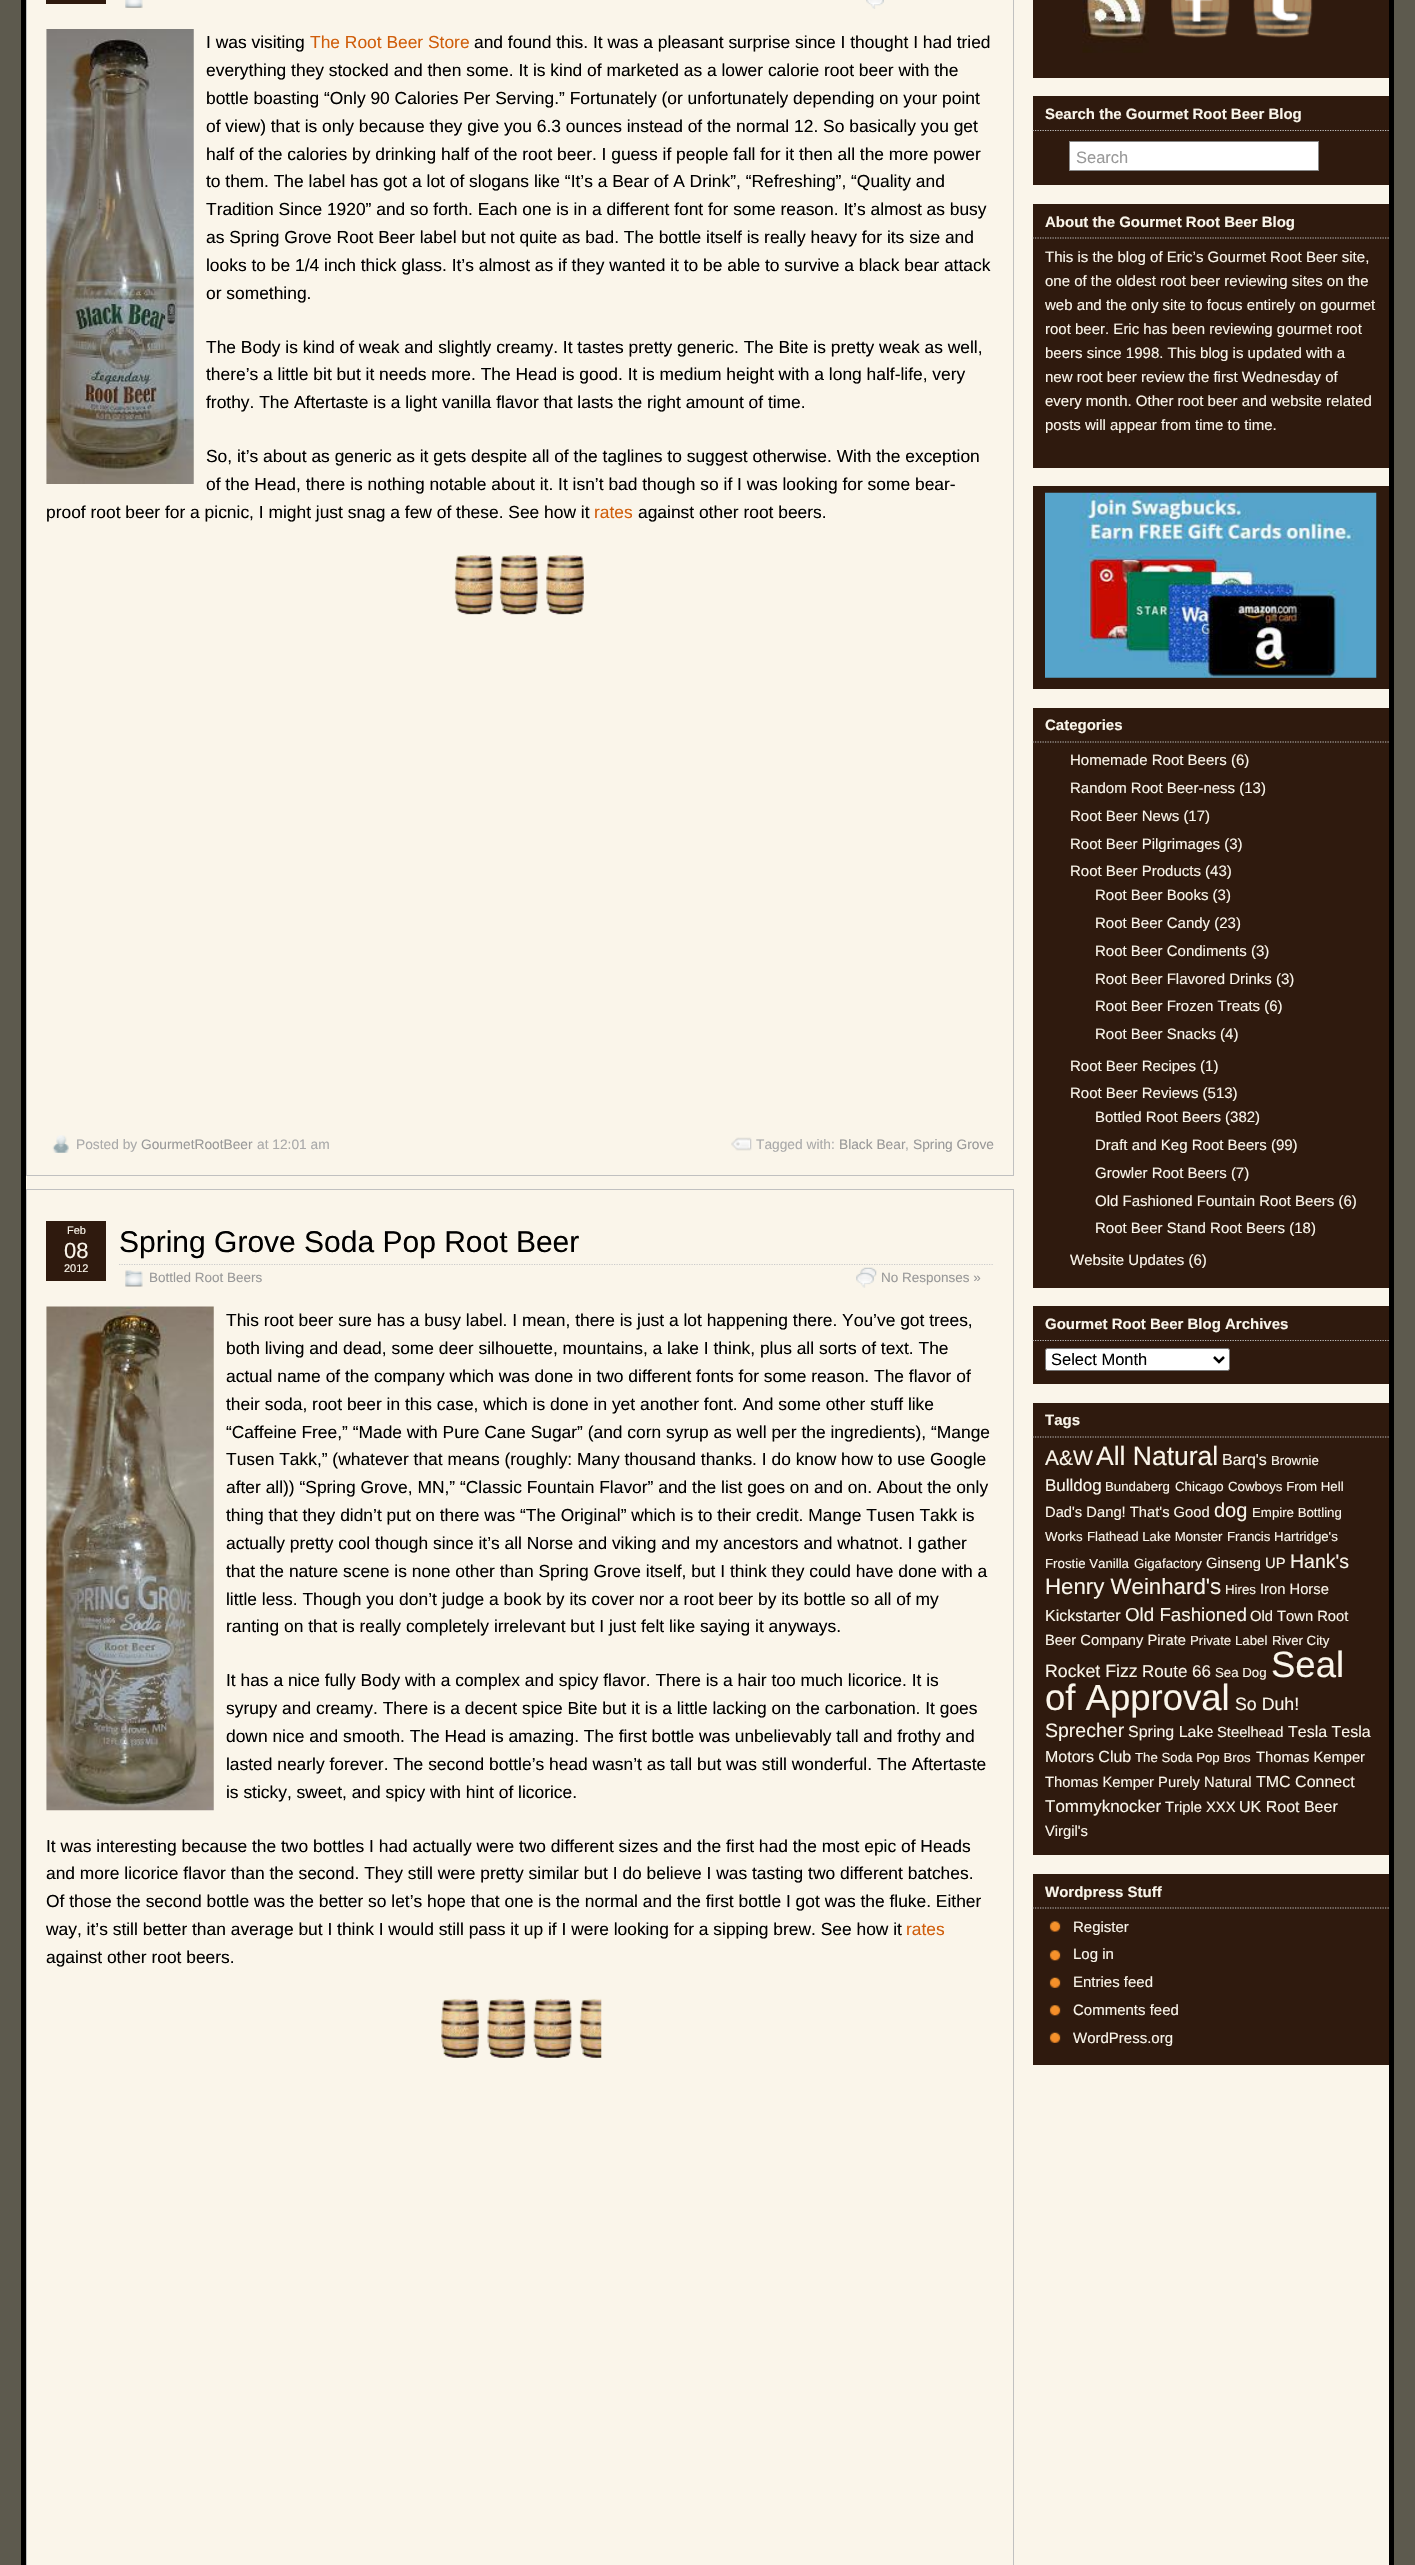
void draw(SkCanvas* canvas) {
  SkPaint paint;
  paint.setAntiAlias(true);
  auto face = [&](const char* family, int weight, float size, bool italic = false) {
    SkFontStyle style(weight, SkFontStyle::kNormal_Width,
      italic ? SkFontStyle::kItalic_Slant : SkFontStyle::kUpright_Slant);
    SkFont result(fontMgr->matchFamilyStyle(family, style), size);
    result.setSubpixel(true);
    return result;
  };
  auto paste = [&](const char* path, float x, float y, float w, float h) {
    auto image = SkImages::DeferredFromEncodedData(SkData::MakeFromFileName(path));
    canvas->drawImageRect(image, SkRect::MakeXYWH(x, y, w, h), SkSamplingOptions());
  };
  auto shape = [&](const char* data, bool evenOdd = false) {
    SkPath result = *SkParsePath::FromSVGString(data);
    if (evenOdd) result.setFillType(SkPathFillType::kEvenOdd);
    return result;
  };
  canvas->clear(0xff5d5a4e);
  paint.setColor(0xfffaf5ea);
  canvas->drawRect(SkRect::MakeXYWH(23.5f, -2.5f, 1368, 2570), paint);
  paint.setStroke(true);
  paint.setStrokeWidth(5);
  paint.setColor(0xff000000);
  canvas->drawRect(SkRect::MakeXYWH(23.5f, -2.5f, 1368, 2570), paint);
  paint.setStrokeWidth(1);
  paint.setColor(0xffc0c0c0);
  canvas->drawRect(SkRect::MakeXYWH(26.5f, -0.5f, 987, 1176), paint);
  paint.setStroke(false);
  paint.setColor(0xff2f1a0e);
  canvas->drawRect(SkRect::MakeXYWH(46, 0, 60, 4), paint);
  paste("img/1.png", 125, 0, 18, 8);
  paste("img/2.png", 866, 0, 18, 9);
  paste("img/3.png", 46, 29, 148, 455);
  paste("img/4.png", 454, 555, 130, 60);
  paste("img/5.png", 52, 1135, 17, 18);
  paste("img/6.png", 731, 1137, 21, 14);
  paint.setStroke(true);
  paint.setColor(0xffc0c0c0);
  canvas->drawRect(SkRect::MakeXYWH(26.5f, 1189.5f, 987, 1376), paint);
  paint.setStroke(false);
  paint.setColor(0xff2f1a0e);
  canvas->drawRect(SkRect::MakeXYWH(46, 1221, 60, 60), paint);
  paint.setStroke(true);
  paint.setStrokeWidth(1.2f);
  paint.setColor(0xffcccccc);
  paint.setPathEffect(SkDashPathEffect::Make({{1.25f, 1.25f}}, 0));
  canvas->drawPath(shape("M119 1264.5H994"), paint);
  paint.setPathEffect(nullptr);
  paste("img/7.png", 125, 1270, 18, 17);
  paste("img/8.png", 856, 1267, 21, 21);
  paste("img/9.png", 46, 1306, 168, 505);
  paste("img/10.png", 441, 1998, 161, 60);
  paint.setStroke(false);
  paint.setColor(0xff2f1a0e);
  canvas->drawRect(SkRect::MakeXYWH(1033, 0, 356, 78), paint);
  paste("img/11.png", 1082, 0, 67, 53);
  paste("img/12.png", 1171, 0, 59, 38);
  paste("img/13.png", 1253, 0, 60, 38);
  canvas->drawRect(SkRect::MakeXYWH(1033, 96, 356, 89), paint);
  paint.setStroke(true);
  paint.setColor(0xffc0c0c0);
  paint.setPathEffect(SkDashPathEffect::Make({{1.25f, 1.25f}}, 0));
  canvas->drawPath(shape("M1032.5 130.5H1389"), paint);
  paint.setPathEffect(nullptr);
  paint.setStroke(false);
  paint.setColor(0xffffffff);
  canvas->drawRect(SkRect::MakeXYWH(1069.5f, 141.5f, 249, 29), paint);
  paint.setStroke(true);
  paint.setStrokeWidth(1);
  paint.setColor(0xff888888);
  canvas->drawRect(SkRect::MakeXYWH(1069.5f, 141.5f, 249, 29), paint);
  paint.setStroke(false);
  paint.setColor(0xff2f1a0e);
  canvas->drawRect(SkRect::MakeXYWH(1033, 204, 356, 264), paint);
  paint.setStroke(true);
  paint.setStrokeWidth(1.2f);
  paint.setColor(0xffc0c0c0);
  paint.setPathEffect(SkDashPathEffect::Make({{1.25f, 1.25f}}, 0));
  canvas->drawPath(shape("M1032.5 238H1389"), paint);
  paint.setPathEffect(nullptr);
  paint.setStroke(false);
  paint.setColor(0xff2f1a0e);
  canvas->drawRect(SkRect::MakeXYWH(1033, 486, 356, 203), paint);
  paste("img/14.png", 1045, 492, 332, 186);
  canvas->drawRect(SkRect::MakeXYWH(1033, 708, 356, 580), paint);
  paint.setStroke(true);
  paint.setColor(0xffc0c0c0);
  paint.setPathEffect(SkDashPathEffect::Make({{1.25f, 1.25f}}, 0));
  canvas->drawPath(shape("M1032.5 742H1389"), paint);
  paint.setPathEffect(nullptr);
  paint.setStroke(false);
  paint.setColor(0xff2f1a0e);
  canvas->drawRect(SkRect::MakeXYWH(1033, 1306, 356, 78), paint);
  paint.setStroke(true);
  paint.setColor(0xffc0c0c0);
  paint.setPathEffect(SkDashPathEffect::Make({{1.25f, 1.25f}}, 0));
  canvas->drawPath(shape("M1032.5 1340.5H1389"), paint);
  paint.setPathEffect(nullptr);
  paint.setStroke(false);
  paint.setColor(0xffffffff);
  canvas->drawRoundRect(SkRect::MakeXYWH(1045.5f, 1348.5f, 184, 22), 2, 2, paint);
  paint.setStroke(true);
  paint.setStrokeWidth(1);
  paint.setColor(0xff767676);
  canvas->drawRoundRect(SkRect::MakeXYWH(1045.5f, 1348.5f, 184, 22), 2, 2, paint);
  paint.setStrokeWidth(2.5f);
  paint.setColor(0xff000000);
  canvas->drawPath(shape("M1214 1357L1219 1362L1224 1357"), paint);
  paint.setStroke(false);
  paint.setColor(0xff2f1a0e);
  canvas->drawRect(SkRect::MakeXYWH(1033, 1403, 356, 452), paint);
  paint.setStroke(true);
  paint.setStrokeWidth(1.2f);
  paint.setColor(0xffc0c0c0);
  paint.setPathEffect(SkDashPathEffect::Make({{1.25f, 1.25f}}, 0));
  canvas->drawPath(shape("M1032.5 1437H1389"), paint);
  paint.setPathEffect(nullptr);
  paint.setStroke(false);
  paint.setColor(0xff2f1a0e);
  canvas->drawRect(SkRect::MakeXYWH(1033, 1874, 356, 191), paint);
  paint.setStroke(true);
  paint.setColor(0xffc0c0c0);
  paint.setPathEffect(SkDashPathEffect::Make({{1.25f, 1.25f}}, 0));
  canvas->drawPath(shape("M1032.5 1908H1389"), paint);
  paint.setPathEffect(nullptr);
  paste("img/15.png", 1049, 1921, 12, 11);
  paste("img/16.png", 1049, 1950, 12, 11);
  paste("img/17.png", 1049, 1977, 12, 11);
  paste("img/16.png", 1049, 2005, 12, 11);
  paste("img/18.png", 1049, 2032, 12, 11);
  auto f0 = face("Liberation Sans", 400, 17.4f);
  paint.setStroke(false);
  paint.setColor(0xff000000);
  canvas->drawString("I was visiting", 206, 48, f0, paint);
  paint.setColor(0xffd05e0b);
  canvas->drawString("The Root Beer Store", 310, 48, f0, paint);
  paint.setColor(0xff000000);
  {
    const struct { const char* s; float x, y; } items[] = {
      {"and found this. It was a pleasant surprise since I thought I had tried", 474, 48},
      {"everything they stocked and then some. It is kind of marketed as a lower calorie root beer with the", 206, 76},
      {"bottle boasting “Only 90 Calories Per Serving.” Fortunately (or unfortunately depending on your point", 206, 104},
      {"of view) that is only because they give you 6.3 ounces instead of the normal 12. So basically you get", 206, 132},
      {"half of the calories by drinking half of the root beer. I guess if people fall for it then all the more power", 206, 160},
      {"to them. The label has got a lot of slogans like “It’s a Bear of A Drink”, “Refreshing”, “Quality and", 206, 187},
      {"Tradition Since 1920” and so forth. Each one is in a different font for some reason. It’s almost as busy", 206, 215},
      {"as Spring Grove Root Beer label but not quite as bad. The bottle itself is really heavy for its size and", 206, 243},
      {"looks to be 1/4 inch thick glass. It’s almost as if they wanted it to be able to survive a black bear attack", 206, 271},
      {"or something.", 206, 299},
      {"The Body is kind of weak and slightly creamy. It tastes pretty generic. The Bite is pretty weak as well,", 206, 353},
      {"there’s a little bit but it needs more. The Head is good. It is medium height with a long half-life, very", 206, 380},
      {"frothy. The Aftertaste is a light vanilla flavor that lasts the right amount of time.", 206, 408},
      {"So, it’s about as generic as it gets despite all of the taglines to suggest otherwise. With the exception", 206, 462},
      {"of the Head, there is nothing notable about it. It isn’t bad though so if I was looking for some bear-", 206, 490},
      {"proof root beer for a picnic, I might just snag a few of these. See how it", 46, 518},
    };
    for (auto [s, x, y] : items) {
      canvas->drawString(s, x, y, f0, paint);
    }
  }
  paint.setColor(0xffd05e0b);
  canvas->drawString("rates", 594, 518, f0, paint);
  paint.setColor(0xff000000);
  canvas->drawString("against other root beers.", 638, 518, f0, paint);
  auto f1 = face("Liberation Sans", 400, 13.75f);
  paint.setColor(0xffaaaaaa);
  canvas->drawString("Posted by", 76, 1149, f1, paint);
  paint.setColor(0xff999999);
  canvas->drawString("GourmetRootBeer", 141, 1149, f1, paint);
  paint.setColor(0xffaaaaaa);
  canvas->drawString("at 12:01 am", 257, 1149, f1, paint);
  canvas->drawString("Tagged with:", 756, 1149, f1, paint);
  paint.setColor(0xff999999);
  canvas->drawString("Black Bear", 839, 1149, f1, paint);
  paint.setColor(0xffaaaaaa);
  canvas->drawString(",", 905, 1149, f1, paint);
  paint.setColor(0xff999999);
  canvas->drawString("Spring Grove", 913, 1149, f1, paint);
  auto f2 = face("Liberation Sans", 400, 11);
  paint.setColor(0xfffaf5ea);
  canvas->drawString("Feb", 67, 1234, f2, paint);
  auto f3 = face("Liberation Sans", 400, 22);
  canvas->drawString("08", 64, 1258, f3, paint);
  canvas->drawString("2012", 64, 1272, f2, paint);
  auto f4 = face("Liberation Sans", 400, 30);
  paint.setColor(0xff000000);
  canvas->drawString("Spring Grove Soda Pop Root Beer", 119, 1252, f4, paint);
  auto f5 = face("Liberation Sans", 400, 13.5f);
  paint.setColor(0xff999999);
  canvas->drawString("Bottled Root Beers", 149, 1282, f5, paint);
  canvas->drawString("No Responses »", 881, 1282, f5, paint);
  paint.setColor(0xff000000);
  {
    const struct { const char* s; float x, y; } items[] = {
      {"This root beer sure has a busy label. I mean, there is just a lot happening there. You’ve got trees,", 226, 1326},
      {"both living and dead, some deer silhouette, mountains, a lake I think, plus all sorts of text. The", 226, 1354},
      {"actual name of the company which was done in two different fonts for some reason. The flavor of", 226, 1382},
      {"their soda, root beer in this case, which is done in yet another font. And some other stuff like", 226, 1410},
      {"“Caffeine Free,” “Made with Pure Cane Sugar” (and corn syrup as well per the ingredients), “Mange", 226, 1438},
      {"Tusen Takk,” (whatever that means (roughly: Many thousand thanks. I do know how to use Google", 226, 1465},
      {"after all)) “Spring Grove, MN,” “Classic Fountain Flavor” and the list goes on and on. About the only", 226, 1493},
      {"thing that they didn’t put on there was “The Original” which is to their credit. Mange Tusen Takk is", 226, 1521},
      {"actually pretty cool though since it’s all Norse and viking and my ancestors and whatnot. I gather", 226, 1549},
      {"that the nature scene is none other than Spring Grove itself, but I think they could have done with a", 226, 1577},
      {"little less. Though you don’t judge a book by its cover nor a root beer by its bottle so all of my", 226, 1605},
      {"ranting on that is really completely irrelevant but I just felt like saying it anyways.", 226, 1632},
      {"It has a nice fully Body with a complex and spicy flavor. There is a hair too much licorice. It is", 226, 1686},
      {"syrupy and creamy. There is a decent spice Bite but it is a little lacking on the carbonation. It goes", 226, 1714},
      {"down nice and smooth. The Head is amazing. The first bottle was unbelievably tall and frothy and", 226, 1742},
      {"lasted nearly forever. The second bottle’s head wasn’t as tall but was still wonderful. The Aftertaste", 226, 1770},
      {"is sticky, sweet, and spicy with hint of licorice.", 226, 1798},
      {"It was interesting because the two bottles I had actually were two different sizes and the first had the most epic of Heads", 46, 1852},
      {"and more licorice flavor than the second. They still were pretty similar but I do believe I was tasting two different batches.", 46, 1879},
      {"Of those the second bottle was the better so let’s hope that one is the normal and the first bottle I got was the fluke. Either", 46, 1907},
      {"way, it’s still better than average but I think I would still pass it up if I were looking for a sipping brew. See how it", 46, 1935},
    };
    for (auto [s, x, y] : items) {
      canvas->drawString(s, x, y, f0, paint);
    }
  }
  paint.setColor(0xffd05e0b);
  canvas->drawString("rates", 906, 1935, f0, paint);
  paint.setColor(0xff000000);
  canvas->drawString("against other root beers.", 46, 1963, f0, paint);
  auto f6 = face("Liberation Sans", 700, 15);
  paint.setColor(0xfffaf5ea);
  canvas->drawString("Search the Gourmet Root Beer Blog", 1045, 119, f6, paint);
  auto f7 = face("Liberation Sans", 400, 16.5f);
  paint.setColor(0xff999999);
  canvas->drawString("Search", 1076, 163, f7, paint);
  paint.setColor(0xfffaf5ea);
  canvas->drawString("About the Gourmet Root Beer Blog", 1045, 227, f6, paint);
  auto f8 = face("Liberation Sans", 400, 15);
  {
    const struct { const char* s; float x, y; } items[] = {
      {"This is the blog of Eric’s Gourmet Root Beer site,", 1045, 262},
      {"one of the oldest root beer reviewing sites on the", 1045, 286},
      {"web and the only site to focus entirely on gourmet", 1045, 310},
      {"root beer. Eric has been reviewing gourmet root", 1045, 334},
      {"beers since 1998. This blog is updated with a", 1045, 358},
      {"new root beer review the first Wednesday of", 1045, 382},
      {"every month. Other root beer and website related", 1045, 406},
      {"posts will appear from time to time.", 1045, 430},
    };
    for (auto [s, x, y] : items) {
      canvas->drawString(s, x, y, f8, paint);
    }
  }
  canvas->drawString("Categories", 1045, 730, f6, paint);
  {
    const struct { const char* s; float x, y; } items[] = {
      {"Homemade Root Beers (6)", 1070, 765},
      {"Random Root Beer-ness (13)", 1070, 793},
      {"Root Beer News (17)", 1070, 821},
      {"Root Beer Pilgrimages (3)", 1070, 849},
      {"Root Beer Products (43)", 1070, 876},
      {"Root Beer Books (3)", 1095, 900},
      {"Root Beer Candy (23)", 1095, 928},
      {"Root Beer Condiments (3)", 1095, 956},
      {"Root Beer Flavored Drinks (3)", 1095, 984},
      {"Root Beer Frozen Treats (6)", 1095, 1011},
      {"Root Beer Snacks (4)", 1095, 1039},
      {"Root Beer Recipes (1)", 1070, 1071},
      {"Root Beer Reviews (513)", 1070, 1098},
      {"Bottled Root Beers (382)", 1095, 1122},
      {"Draft and Keg Root Beers (99)", 1095, 1150},
      {"Growler Root Beers (7)", 1095, 1178},
      {"Old Fashioned Fountain Root Beers (6)", 1095, 1206},
      {"Root Beer Stand Root Beers (18)", 1095, 1233},
      {"Website Updates (6)", 1070, 1265},
    };
    for (auto [s, x, y] : items) {
      canvas->drawString(s, x, y, f8, paint);
    }
  }
  canvas->drawString("Gourmet Root Beer Blog Archives", 1045, 1329, f6, paint);
  paint.setColor(0xff000000);
  canvas->drawString("Select Month", 1051, 1365, f7, paint);
  paint.setColor(0xfffaf5ea);
  canvas->drawString("Tags", 1045, 1425, f6, paint);
  auto f9 = face("Liberation Sans", 400, 21);
  canvas->drawString("A&W", 1045, 1465, f9, paint);
  auto f10 = face("Liberation Sans", 400, 26.5f);
  canvas->drawString("All Natural", 1096, 1465, f10, paint);
  auto f11 = face("Liberation Sans", 400, 16);
  canvas->drawString("Barq's", 1222, 1465, f11, paint);
  auto f12 = face("Liberation Sans", 400, 13.25f);
  canvas->drawString("Brownie", 1271, 1465, f12, paint);
  auto f13 = face("Liberation Sans", 400, 17);
  canvas->drawString("Bulldog", 1045, 1491, f13, paint);
  {
    const struct { const char* s; float x, y; } items[] = {
      {"Bundaberg", 1105, 1491},
      {"Chicago", 1175, 1491},
      {"Cowboys From Hell", 1228, 1491},
    };
    for (auto [s, x, y] : items) {
      canvas->drawString(s, x, y, f12, paint);
    }
  }
  auto f14 = face("Liberation Sans", 400, 14.75f);
  canvas->drawString("Dad's Dang! That's Good", 1045, 1517, f14, paint);
  auto f15 = face("Liberation Sans", 400, 20);
  canvas->drawString("dog", 1214, 1517, f15, paint);
  {
    const struct { const char* s; float x, y; } items[] = {
      {"Empire Bottling", 1252, 1517},
      {"Works", 1045, 1541},
      {"Flathead Lake Monster", 1087, 1541},
      {"Francis Hartridge's", 1227, 1541},
      {"Frostie Vanilla", 1045, 1568},
      {"Gigafactory", 1134, 1568},
    };
    for (auto [s, x, y] : items) {
      canvas->drawString(s, x, y, f12, paint);
    }
  }
  canvas->drawString("Ginseng UP", 1206, 1568, f14, paint);
  auto f16 = face("Liberation Sans", 400, 19.5f);
  canvas->drawString("Hank's", 1290, 1568, f16, paint);
  auto f17 = face("Liberation Sans", 400, 22.25f);
  canvas->drawString("Henry Weinhard's", 1045, 1594, f17, paint);
  canvas->drawString("Hires", 1225, 1594, f12, paint);
  canvas->drawString("Iron Horse", 1260, 1594, f14, paint);
  canvas->drawString("Kickstarter", 1045, 1621, f11, paint);
  auto f18 = face("Liberation Sans", 400, 18.75f);
  canvas->drawString("Old Fashioned", 1125, 1621, f18, paint);
  canvas->drawString("Old Town Root", 1250, 1621, f14, paint);
  canvas->drawString("Beer Company Pirate", 1045, 1645, f14, paint);
  canvas->drawString("Private Label", 1190, 1645, f12, paint);
  canvas->drawString("River City", 1272, 1645, f12, paint);
  auto f19 = face("Liberation Sans", 400, 17.75f);
  canvas->drawString("Rocket Fizz", 1045, 1677, f19, paint);
  canvas->drawString("Route 66", 1142, 1677, f13, paint);
  canvas->drawString("Sea Dog", 1215, 1677, f12, paint);
  auto f20 = face("Liberation Sans", 400, 36.5f);
  canvas->drawString("Seal", 1271, 1677, f20, paint);
  canvas->drawString("of Approval", 1045, 1710, f20, paint);
  canvas->drawString("So Duh!", 1235, 1710, f19, paint);
  canvas->drawString("Sprecher", 1045, 1737, f16, paint);
  canvas->drawString("Spring Lake", 1128, 1737, f11, paint);
  canvas->drawString("Steelhead", 1217, 1737, f14, paint);
  canvas->drawString("Tesla Tesla", 1288, 1737, f11, paint);
  canvas->drawString("Motors Club", 1045, 1762, f11, paint);
  canvas->drawString("The Soda Pop Bros", 1135, 1762, f12, paint);
  canvas->drawString("Thomas Kemper", 1256, 1762, f14, paint);
  canvas->drawString("Thomas Kemper Purely Natural", 1045, 1787, f14, paint);
  canvas->drawString("TMC Connect", 1256, 1787, f11, paint);
  canvas->drawString("Tommyknocker", 1045, 1812, f13, paint);
  canvas->drawString("Triple XXX", 1165, 1812, f14, paint);
  canvas->drawString("UK Root Beer", 1239, 1812, f11, paint);
  canvas->drawString("Virgil's", 1045, 1836, f14, paint);
  canvas->drawString("Wordpress Stuff", 1045, 1897, f6, paint);
  {
    const struct { const char* s; float x, y; } items[] = {
      {"Register", 1073, 1932},
      {"Log in", 1073, 1959},
      {"Entries feed", 1073, 1987},
      {"Comments feed", 1073, 2015},
      {"WordPress.org", 1073, 2043},
    };
    for (auto [s, x, y] : items) {
      canvas->drawString(s, x, y, f8, paint);
    }
  }
}
